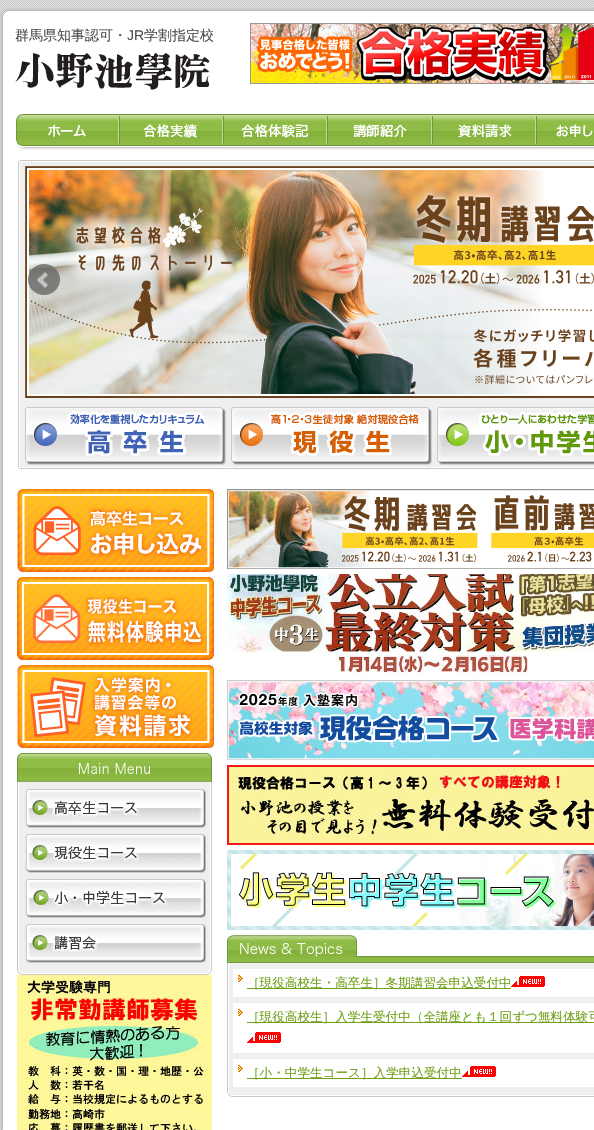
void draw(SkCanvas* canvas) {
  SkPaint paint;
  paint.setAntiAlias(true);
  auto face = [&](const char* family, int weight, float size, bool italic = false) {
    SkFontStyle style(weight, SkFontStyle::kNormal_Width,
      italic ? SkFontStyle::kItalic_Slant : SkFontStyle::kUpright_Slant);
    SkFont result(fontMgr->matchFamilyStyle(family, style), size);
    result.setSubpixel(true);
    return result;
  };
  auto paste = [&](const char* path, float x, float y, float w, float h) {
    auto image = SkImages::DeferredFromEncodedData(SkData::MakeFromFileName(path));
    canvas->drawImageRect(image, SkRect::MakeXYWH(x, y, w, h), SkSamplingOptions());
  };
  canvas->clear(0xffffffff);
  paste("img/1.png", 0, 0, 594, 8);
  paste("img/2.png", 0, 17, 594, 1113);
  paste("img/3.png", 0, 8, 594, 9);
  paste("img/4.png", 15, 53, 195, 37);
  paste("img/5.png", 250, 23, 344, 61);
  paste("img/6.png", 15, 114, 105, 36);
  paste("img/7.png", 120, 114, 104, 36);
  paste("img/8.png", 224, 114, 104, 36);
  paste("img/9.png", 328, 114, 104, 36);
  paste("img/10.png", 432, 114, 104, 36);
  paste("img/11.png", 536, 114, 58, 36);
  paste("img/12.png", 18, 160, 576, 309);
  paste("img/13.png", 25, 166, 569, 232);
  paste("img/14.png", 28, 264, 32, 31);
  paste("img/15.png", 25, 407, 201, 58);
  paste("img/16.png", 231, 407, 201, 58);
  paste("img/17.png", 437, 407, 157, 58);
  paste("img/18.png", 17, 489, 197, 83);
  paste("img/19.png", 17, 577, 197, 83);
  paste("img/20.png", 17, 665, 197, 83);
  paste("img/21.png", 17, 753, 195, 29);
  paste("img/22.png", 17, 782, 195, 187);
  paste("img/23.png", 25, 789, 181, 39);
  paste("img/24.png", 25, 834, 181, 39);
  paste("img/25.png", 25, 879, 181, 39);
  paste("img/26.png", 25, 924, 181, 39);
  paste("img/27.png", 17, 969, 195, 6);
  paste("img/28.png", 17, 975, 195, 155);
  paste("img/29.png", 227, 489, 367, 80);
  paste("img/30.png", 227, 574, 367, 101);
  paste("img/31.png", 227, 680, 367, 80);
  paste("img/32.png", 227, 765, 367, 80);
  paste("img/33.png", 227, 850, 367, 80);
  paste("img/34.png", 227, 963, 367, 129);
  paste("img/35.png", 227, 935, 367, 28);
  paste("img/36.png", 227, 1092, 367, 5);
  paint.setColor(0xffffffff);
  canvas->drawRect(SkRect::MakeXYWH(233, 969, 361, 28), paint);
  paste("img/37.png", 238, 975, 5, 7);
  paint.setColor(0xff70a119);
  canvas->drawRect(SkRect::MakeXYWH(247, 988, 264, 1), paint);
  paste("img/38.png", 511, 976, 34, 11);
  paint.setColor(0xffffffff);
  canvas->drawRect(SkRect::MakeXYWH(233, 1003, 361, 50), paint);
  paste("img/37.png", 238, 1009, 5, 7);
  paint.setColor(0xff70a119);
  canvas->drawRect(SkRect::MakeXYWH(247, 1022, 347, 1), paint);
  paste("img/38.png", 247, 1032, 34, 11);
  paint.setColor(0xffffffff);
  canvas->drawRect(SkRect::MakeXYWH(233, 1059, 361, 28), paint);
  paste("img/37.png", 238, 1065, 5, 7);
  paint.setColor(0xff70a119);
  canvas->drawRect(SkRect::MakeXYWH(247, 1078, 215, 1), paint);
  paste("img/38.png", 462, 1066, 34, 11);
  auto f0 = face("WenQuanYi Zen Hei", 500, 14);
  paint.setColor(0xff4d4d4d);
  canvas->drawString("群馬県知事認可・", 15, 40, f0, paint);
  auto f1 = face("Liberation Sans", 400, 14);
  canvas->drawString("JR", 127, 40, f1, paint);
  canvas->drawString("学割指定校", 144, 40, f0, paint);
  auto f2 = face("WenQuanYi Zen Hei", 500, 12.6f);
  paint.setColor(0xff70a119);
  {
    const struct { const char* s; float x, y; } items[] = {
      {"［現役高校生・高卒生］冬期講習会申込受付中", 247, 987},
      {"［現役高校生］入学生受付中（全講座とも１回ずつ無料体験可", 247, 1021},
      {"［小・中学生コース］入学申込受付中", 247, 1077},
    };
    for (auto [s, x, y] : items) {
      canvas->drawString(s, x, y, f2, paint);
    }
  }
}
